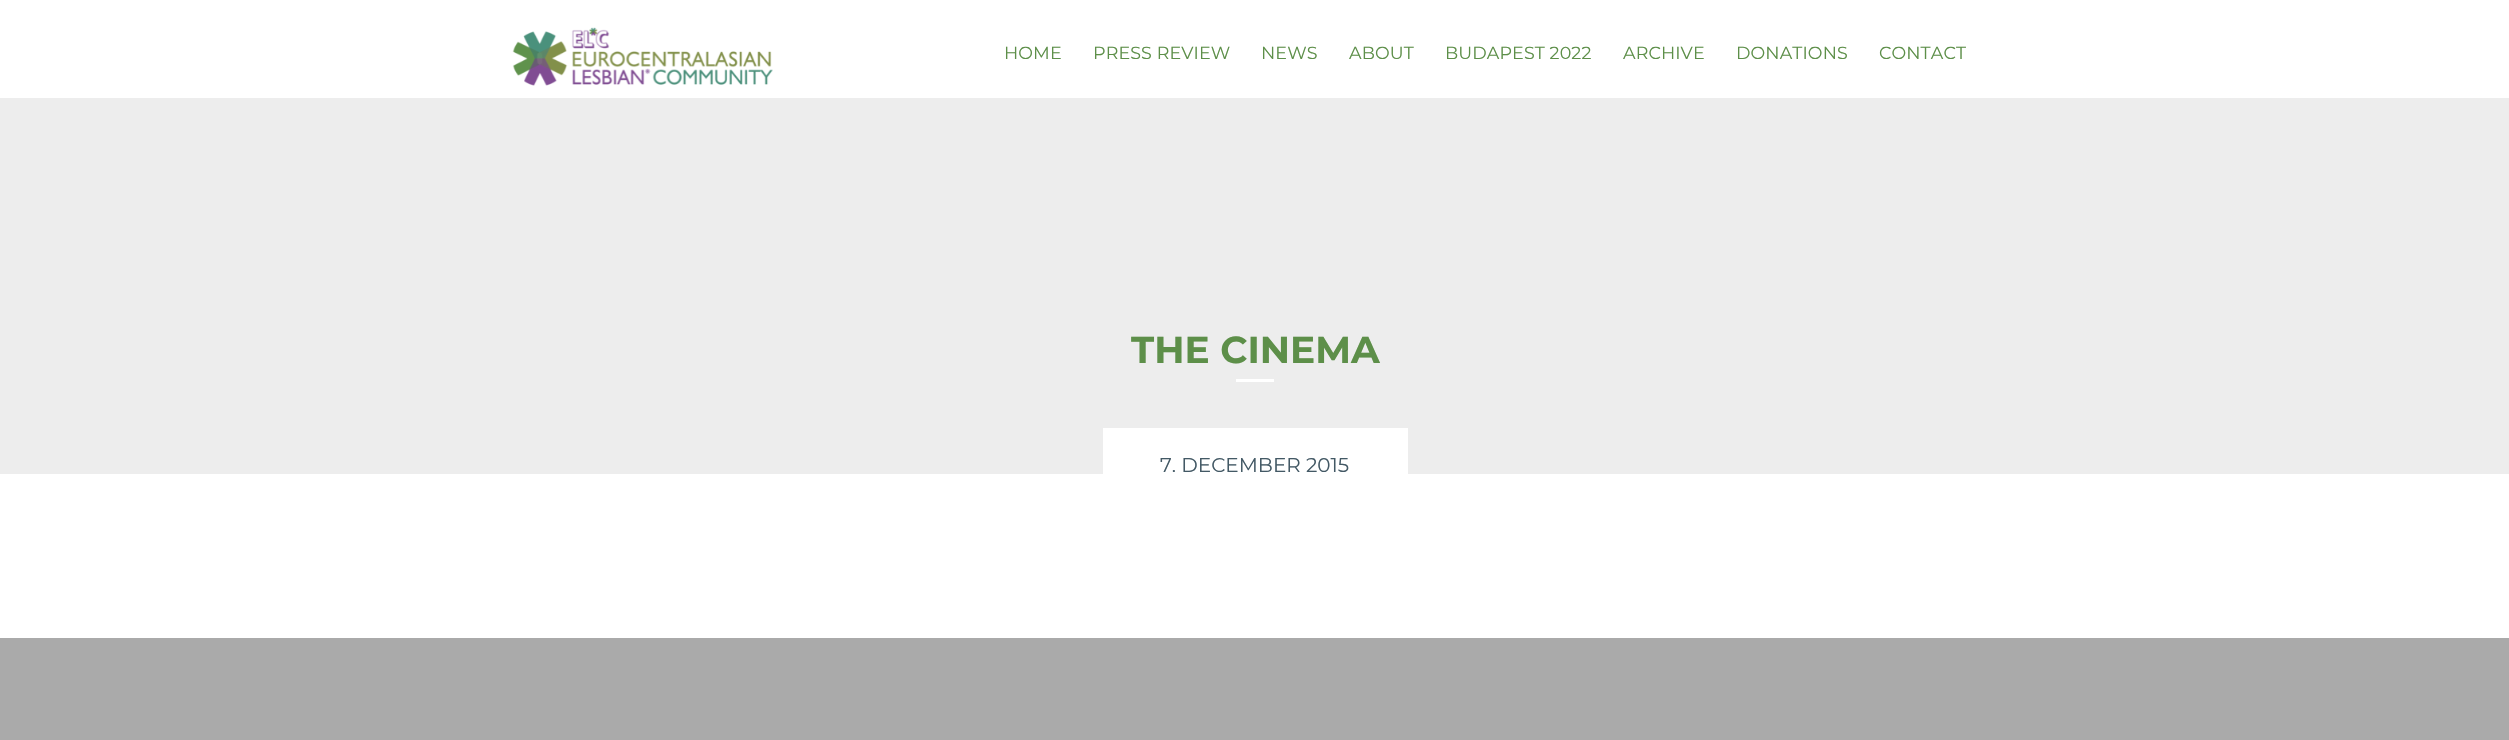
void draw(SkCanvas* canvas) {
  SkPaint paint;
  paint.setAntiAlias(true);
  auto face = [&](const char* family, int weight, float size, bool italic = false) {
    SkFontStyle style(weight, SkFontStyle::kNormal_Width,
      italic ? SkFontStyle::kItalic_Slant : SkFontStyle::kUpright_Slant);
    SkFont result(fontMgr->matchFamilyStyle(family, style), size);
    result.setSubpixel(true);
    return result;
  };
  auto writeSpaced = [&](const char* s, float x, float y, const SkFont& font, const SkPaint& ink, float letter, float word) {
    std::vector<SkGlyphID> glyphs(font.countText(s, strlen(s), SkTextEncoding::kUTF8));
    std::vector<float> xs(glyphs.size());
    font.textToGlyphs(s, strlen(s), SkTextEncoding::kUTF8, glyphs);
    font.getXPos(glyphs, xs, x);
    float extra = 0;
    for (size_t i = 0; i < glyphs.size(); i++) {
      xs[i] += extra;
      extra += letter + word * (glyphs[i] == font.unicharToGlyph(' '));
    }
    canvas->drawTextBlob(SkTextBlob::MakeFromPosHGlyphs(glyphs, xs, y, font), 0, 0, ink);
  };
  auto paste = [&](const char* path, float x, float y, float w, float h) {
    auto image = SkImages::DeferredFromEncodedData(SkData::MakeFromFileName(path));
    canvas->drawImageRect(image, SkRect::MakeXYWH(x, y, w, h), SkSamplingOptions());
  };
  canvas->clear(0xffffffff);
  paste("img/1.png", 512, 27, 261, 59);
  {
    const struct { float x, y, w, h; SkColor color; } items[] = {
      {0, 98, 2509, 376, 0xffededed},
      {1236, 379, 38, 3, 0xffffffff},
      {1103, 428, 305, 46, 0xffffffff},
      {0, 638, 2509, 102, 0xffaaaaaa},
    };
    for (auto [x, y, w, h, color] : items) {
      paint.setColor(color);
      canvas->drawRect(SkRect::MakeXYWH(x, y, w, h), paint);
    }
  }
  auto f0 = face("Montserrat", 100, 17.5f);
  paint.setColor(0xff5d8f49);
  {
    const struct { const char* s; float x, y; } items[] = {
      {"HOME", 1004, 59},
      {"PRESS REVIEW", 1093, 59},
      {"NEWS", 1261, 59},
      {"ABOUT", 1349, 59},
      {"BUDAPEST 2022", 1445, 59},
      {"ARCHIVE", 1623, 59},
      {"DONATIONS", 1736, 59},
      {"CONTACT", 1879, 59},
    };
    for (auto [s, x, y] : items) {
      writeSpaced(s, x, y, f0, paint, 0.1f, 0);
    }
  }
  auto f1 = face("Montserrat", 700, 37.5f);
  canvas->drawString("THE CINEMA", 1131, 363, f1, paint);
  auto f2 = face("Montserrat", 100, 20);
  paint.setColor(0xff435965);
  canvas->drawString("7. DECEMBER 2015", 1160, 472, f2, paint);
}
